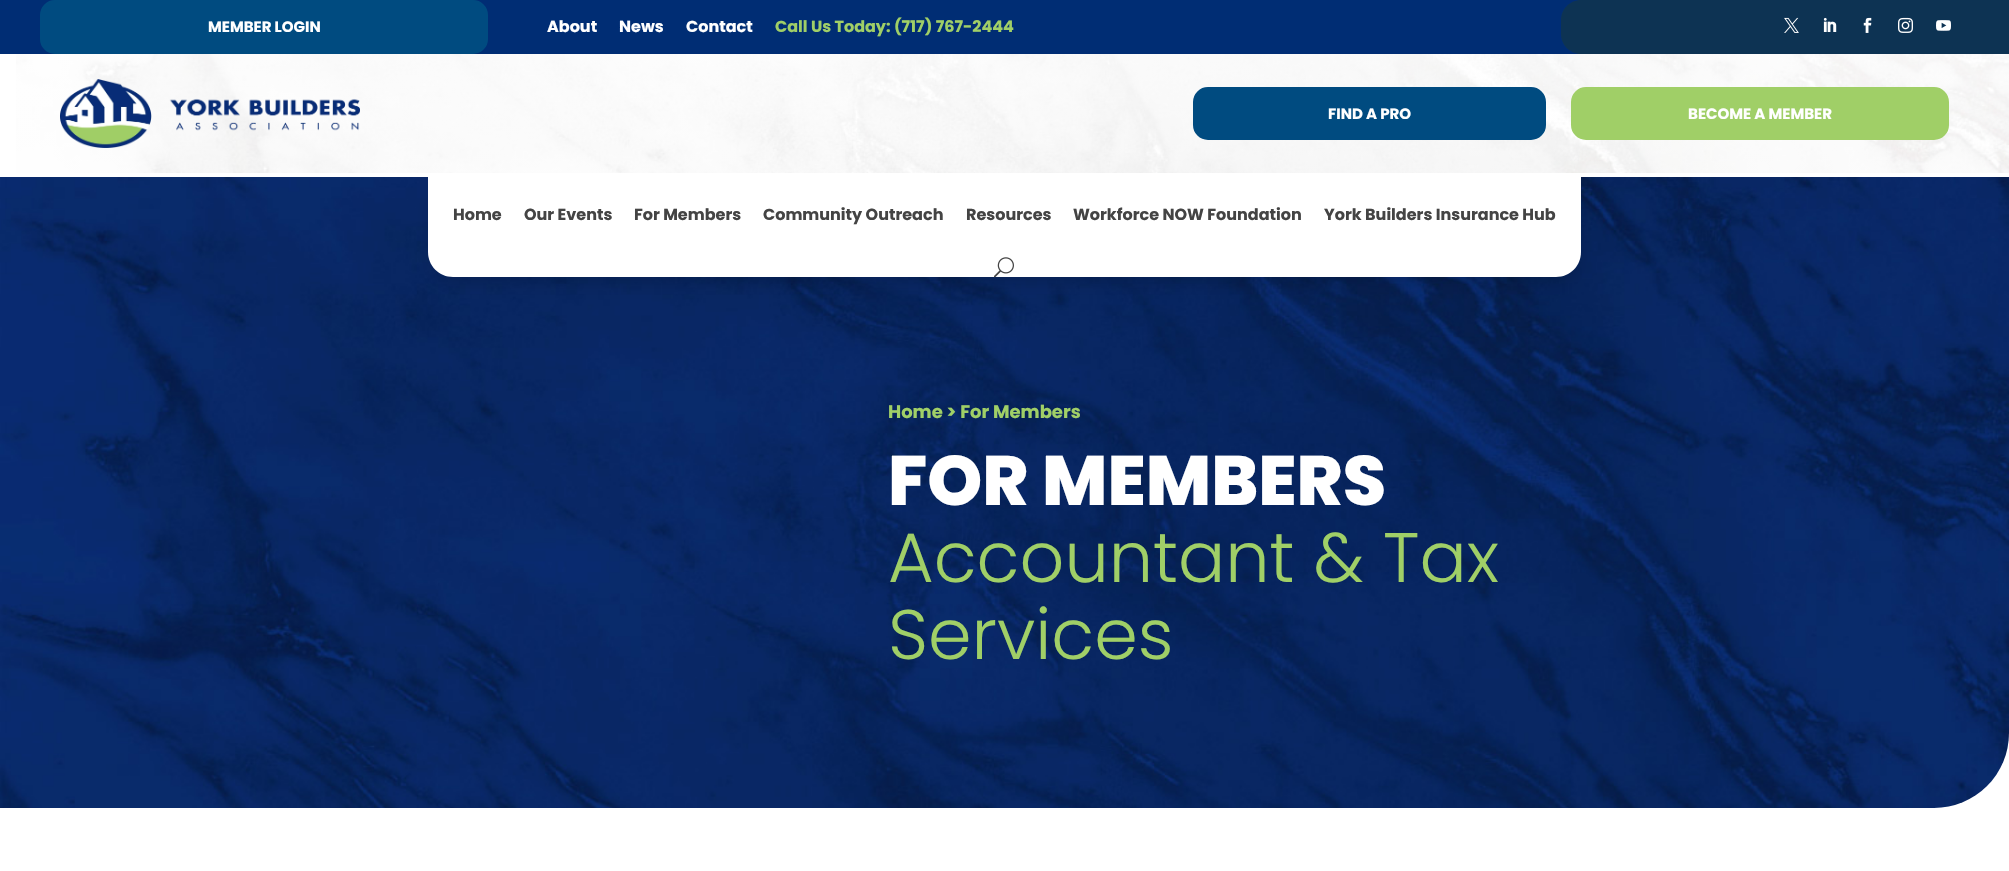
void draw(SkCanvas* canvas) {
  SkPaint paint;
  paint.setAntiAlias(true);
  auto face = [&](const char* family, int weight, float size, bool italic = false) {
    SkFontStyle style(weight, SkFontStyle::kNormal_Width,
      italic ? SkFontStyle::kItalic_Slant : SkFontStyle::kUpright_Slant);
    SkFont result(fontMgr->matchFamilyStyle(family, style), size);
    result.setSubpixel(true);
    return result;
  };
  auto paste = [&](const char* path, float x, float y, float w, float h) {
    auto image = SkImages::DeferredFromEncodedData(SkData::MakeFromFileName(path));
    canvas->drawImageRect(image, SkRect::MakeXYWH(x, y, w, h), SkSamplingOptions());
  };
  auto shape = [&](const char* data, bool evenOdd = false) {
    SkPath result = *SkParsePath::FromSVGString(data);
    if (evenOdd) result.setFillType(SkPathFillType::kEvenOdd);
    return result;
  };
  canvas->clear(0xffffffff);
  paint.setColor(0xff002d74);
  canvas->drawRect(SkRect::MakeXYWH(0, 0, 1581, 54), paint);
  paint.setColor(0xff004b80);
  canvas->drawRoundRect(SkRect::MakeXYWH(42, 2, 444, 50), 13, 13, paint);
  paint.setStroke(true);
  paint.setStrokeWidth(4);
  canvas->drawRoundRect(SkRect::MakeXYWH(42, 2, 444, 50), 13, 13, paint);
  paint.setStroke(false);
  paint.setColor(0xff0d3353);
  canvas->drawPath(shape("M1581 0H2009V54H1581C1570 54 1561 45 1561 34V20C1561 9 1570 0 1581 0Z"), paint);
  paste("img/1.png", 1784, 17, 15, 16);
  paste("img/2.png", 1823, 17, 14, 15);
  paste("img/3.png", 1863, 17, 9, 16);
  paste("img/4.png", 1898, 17, 15, 16);
  paste("img/5.png", 1936, 20, 15, 11);
  paste("img/9.png", 0, 177, 2009, 631);
  paint.setColor(0x26000000);
  paint.setMaskFilter(SkMaskFilter::MakeBlur(kNormal_SkBlurStyle, 9));
  canvas->drawRoundRect(SkRect::MakeXYWH(434, 191, 1141, 92), 19, 19, paint);
  paint.setMaskFilter(nullptr);
  paste("img/6.png", 16, 54, 1993, 119);
  paste("img/7.png", 60, 79, 300, 69);
  paint.setColor(0xff004b80);
  canvas->drawRoundRect(SkRect::MakeXYWH(1195, 89, 349, 49), 13, 13, paint);
  paint.setStroke(true);
  canvas->drawRoundRect(SkRect::MakeXYWH(1195, 89, 349, 49), 13, 13, paint);
  paint.setStroke(false);
  paint.setColor(0xffa0cf67);
  canvas->drawRoundRect(SkRect::MakeXYWH(1573, 89, 374, 49), 13, 13, paint);
  paint.setStroke(true);
  canvas->drawRoundRect(SkRect::MakeXYWH(1573, 89, 374, 49), 13, 13, paint);
  paint.setStroke(false);
  paint.setColor(0xffffffff);
  canvas->drawPath(shape("M428 173H1581V252C1581 266 1570 277 1556 277H453C439 277 428 266 428 252Z"), paint);
  paste("img/8.png", 994, 257, 20, 21);
  auto f0 = face("Poppins", 700, 15);
  canvas->drawString("MEMBER LOGIN", 208, 32, f0, paint);
  auto f1 = face("Poppins", 700, 16);
  {
    const struct { const char* s; float x, y; } items[] = {
      {"About", 547, 32},
      {"News", 619, 32},
      {"Contact", 686, 32},
    };
    for (auto [s, x, y] : items) {
      canvas->drawString(s, x, y, f1, paint);
    }
  }
  paint.setColor(0xffa0cf67);
  canvas->drawString("Call Us Today: (717) 767-2444", 775, 32, f1, paint);
  paint.setColor(0xffffffff);
  canvas->drawString("FIND A PRO", 1328, 119, f0, paint);
  canvas->drawString("BECOME A MEMBER", 1688, 119, f0, paint);
  paint.setColor(0xff444444);
  {
    const struct { const char* s; float x, y; } items[] = {
      {"Home", 453, 220},
      {"Our Events", 524, 220},
      {"For Members", 634, 220},
      {"Community Outreach", 763, 220},
      {"Resources", 966, 220},
      {"Workforce NOW Foundation", 1073, 220},
      {"York Builders Insurance Hub", 1324, 220},
    };
    for (auto [s, x, y] : items) {
      canvas->drawString(s, x, y, f1, paint);
    }
  }
  auto f2 = face("Poppins", 700, 18);
  paint.setColor(0xffa0cf67);
  canvas->drawString("Home > For Members", 888, 418, f2, paint);
  auto f3 = face("Poppins", 800, 70);
  paint.setColor(0xffffffff);
  canvas->drawString("FOR MEMBERS", 888, 505, f3, paint);
  auto f4 = face("Poppins", 300, 70);
  paint.setColor(0xffa0cf67);
  canvas->drawString("Accountant & Tax", 888, 582, f4, paint);
  canvas->drawString("Services", 888, 659, f4, paint);
}
